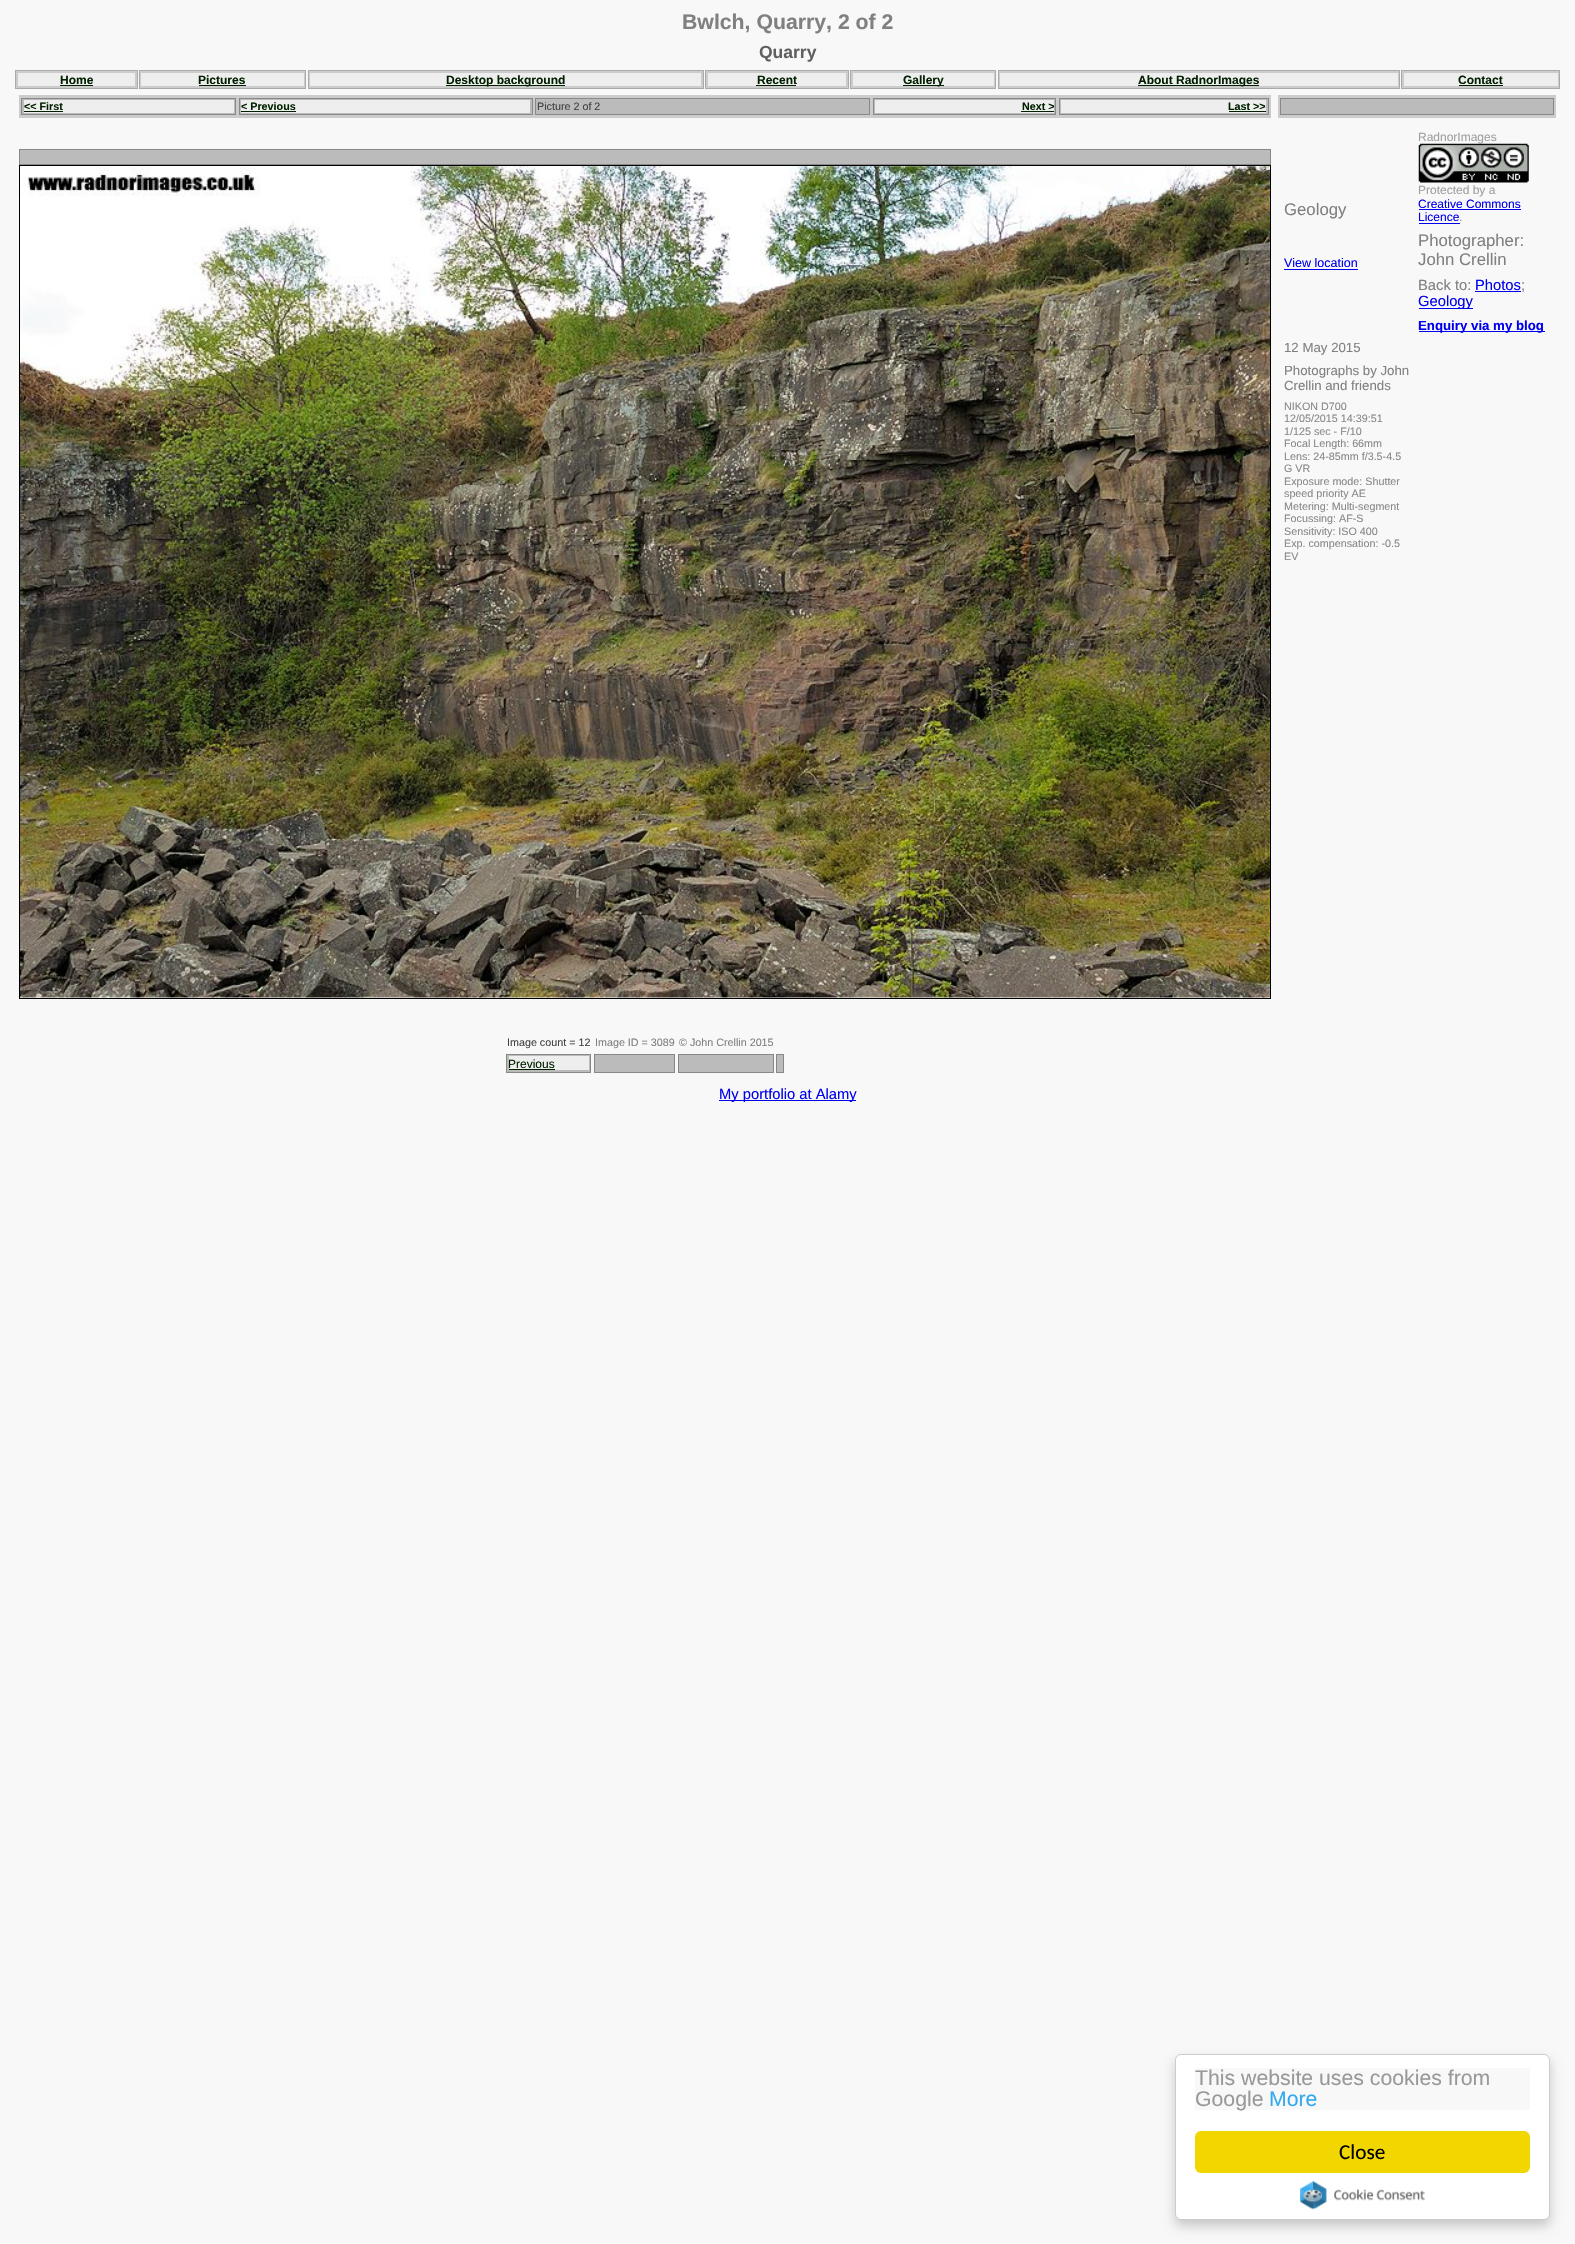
void draw(SkCanvas* canvas) {
  SkPaint paint;
  paint.setAntiAlias(true);
  auto face = [&](const char* family, int weight, float size, bool italic = false) {
    SkFontStyle style(weight, SkFontStyle::kNormal_Width,
      italic ? SkFontStyle::kItalic_Slant : SkFontStyle::kUpright_Slant);
    SkFont result(fontMgr->matchFamilyStyle(family, style), size);
    result.setSubpixel(true);
    return result;
  };
  auto paste = [&](const char* path, float x, float y, float w, float h) {
    auto image = SkImages::DeferredFromEncodedData(SkData::MakeFromFileName(path));
    canvas->drawImageRect(image, SkRect::MakeXYWH(x, y, w, h), SkSamplingOptions());
  };
  canvas->clear(0xfff8f8f8);
  paint.setColor(0xffcccccc);
  canvas->drawRect(SkRect::MakeXYWH(15.5f, 70.5f, 122, 18), paint);
  paint.setStroke(true);
  paint.setStrokeWidth(1);
  paint.setColor(0xffaaaaaa);
  canvas->drawRect(SkRect::MakeXYWH(15.5f, 70.5f, 122, 18), paint);
  paint.setStroke(false);
  paint.setColor(0xffeeeeee);
  canvas->drawRect(SkRect::MakeXYWH(18, 73, 117, 13), paint);
  paint.setColor(0xff002000);
  canvas->drawRect(SkRect::MakeXYWH(60, 85, 33, 1), paint);
  paint.setColor(0xffcccccc);
  canvas->drawRect(SkRect::MakeXYWH(139.5f, 70.5f, 166, 18), paint);
  paint.setStroke(true);
  paint.setColor(0xffaaaaaa);
  canvas->drawRect(SkRect::MakeXYWH(139.5f, 70.5f, 166, 18), paint);
  paint.setStroke(false);
  paint.setColor(0xffeeeeee);
  canvas->drawRect(SkRect::MakeXYWH(141, 73, 163, 13), paint);
  paint.setColor(0xff002000);
  canvas->drawRect(SkRect::MakeXYWH(199, 85, 47, 1), paint);
  paint.setColor(0xffcccccc);
  canvas->drawRect(SkRect::MakeXYWH(308.5f, 70.5f, 395, 18), paint);
  paint.setStroke(true);
  paint.setColor(0xffaaaaaa);
  canvas->drawRect(SkRect::MakeXYWH(308.5f, 70.5f, 395, 18), paint);
  paint.setStroke(false);
  paint.setColor(0xffeeeeee);
  canvas->drawRect(SkRect::MakeXYWH(310, 73, 391, 13), paint);
  paint.setColor(0xff002000);
  canvas->drawRect(SkRect::MakeXYWH(446, 85, 119, 1), paint);
  paint.setColor(0xffcccccc);
  canvas->drawRect(SkRect::MakeXYWH(705.5f, 70.5f, 143, 18), paint);
  paint.setStroke(true);
  paint.setColor(0xffaaaaaa);
  canvas->drawRect(SkRect::MakeXYWH(705.5f, 70.5f, 143, 18), paint);
  paint.setStroke(false);
  paint.setColor(0xffeeeeee);
  canvas->drawRect(SkRect::MakeXYWH(708, 73, 138, 13), paint);
  paint.setColor(0xff002000);
  canvas->drawRect(SkRect::MakeXYWH(756, 85, 40, 1), paint);
  paint.setColor(0xffcccccc);
  canvas->drawRect(SkRect::MakeXYWH(850.5f, 70.5f, 145, 18), paint);
  paint.setStroke(true);
  paint.setColor(0xffaaaaaa);
  canvas->drawRect(SkRect::MakeXYWH(850.5f, 70.5f, 145, 18), paint);
  paint.setStroke(false);
  paint.setColor(0xffeeeeee);
  canvas->drawRect(SkRect::MakeXYWH(853, 73, 141, 13), paint);
  paint.setColor(0xff002000);
  canvas->drawRect(SkRect::MakeXYWH(903, 85, 41, 1), paint);
  paint.setColor(0xffcccccc);
  canvas->drawRect(SkRect::MakeXYWH(998.5f, 70.5f, 401, 18), paint);
  paint.setStroke(true);
  paint.setColor(0xffaaaaaa);
  canvas->drawRect(SkRect::MakeXYWH(998.5f, 70.5f, 401, 18), paint);
  paint.setStroke(false);
  paint.setColor(0xffeeeeee);
  canvas->drawRect(SkRect::MakeXYWH(1000, 73, 398, 13), paint);
  paint.setColor(0xff002000);
  canvas->drawRect(SkRect::MakeXYWH(1138, 85, 121, 1), paint);
  paint.setColor(0xffcccccc);
  canvas->drawRect(SkRect::MakeXYWH(1401.5f, 70.5f, 158, 18), paint);
  paint.setStroke(true);
  paint.setColor(0xffaaaaaa);
  canvas->drawRect(SkRect::MakeXYWH(1401.5f, 70.5f, 158, 18), paint);
  paint.setStroke(false);
  {
    const struct { float x, y, w, h; SkColor color; } items[] = {
      {1404, 73, 154, 13, 0xffeeeeee},
      {1459, 85, 44, 1, 0xff002000},
      {19, 95, 1252, 23, 0xffcccccc},
    };
    for (auto [x, y, w, h, color] : items) {
      paint.setColor(color);
      canvas->drawRect(SkRect::MakeXYWH(x, y, w, h), paint);
    }
  }
  paint.setColor(0xffbbbbbb);
  canvas->drawRect(SkRect::MakeXYWH(21.5f, 98.5f, 214, 16), paint);
  paint.setStroke(true);
  paint.setColor(0xff888888);
  canvas->drawRect(SkRect::MakeXYWH(21.5f, 98.5f, 214, 16), paint);
  paint.setStroke(false);
  paint.setColor(0xffeeeeee);
  canvas->drawRect(SkRect::MakeXYWH(24, 100, 210, 13), paint);
  paint.setColor(0xff002000);
  canvas->drawRect(SkRect::MakeXYWH(24, 111, 39, 1), paint);
  paint.setColor(0xffbbbbbb);
  canvas->drawRect(SkRect::MakeXYWH(239.5f, 98.5f, 293, 16), paint);
  paint.setStroke(true);
  paint.setColor(0xff888888);
  canvas->drawRect(SkRect::MakeXYWH(239.5f, 98.5f, 293, 16), paint);
  paint.setStroke(false);
  paint.setColor(0xffeeeeee);
  canvas->drawRect(SkRect::MakeXYWH(241, 100, 289, 13), paint);
  paint.setColor(0xff002000);
  canvas->drawRect(SkRect::MakeXYWH(241, 111, 55, 1), paint);
  paint.setColor(0xffbbbbbb);
  canvas->drawRect(SkRect::MakeXYWH(535.5f, 98.5f, 334, 16), paint);
  paint.setStroke(true);
  paint.setColor(0xff888888);
  canvas->drawRect(SkRect::MakeXYWH(535.5f, 98.5f, 334, 16), paint);
  paint.setStroke(false);
  paint.setColor(0xffbbbbbb);
  canvas->drawRect(SkRect::MakeXYWH(873.5f, 98.5f, 182, 16), paint);
  paint.setStroke(true);
  paint.setColor(0xff888888);
  canvas->drawRect(SkRect::MakeXYWH(873.5f, 98.5f, 182, 16), paint);
  paint.setStroke(false);
  paint.setColor(0xffeeeeee);
  canvas->drawRect(SkRect::MakeXYWH(875, 100, 179, 13), paint);
  paint.setColor(0xff002000);
  canvas->drawRect(SkRect::MakeXYWH(1021, 111, 33, 1), paint);
  paint.setColor(0xffbbbbbb);
  canvas->drawRect(SkRect::MakeXYWH(1059.5f, 98.5f, 209, 16), paint);
  paint.setStroke(true);
  paint.setColor(0xff888888);
  canvas->drawRect(SkRect::MakeXYWH(1059.5f, 98.5f, 209, 16), paint);
  paint.setStroke(false);
  {
    const struct { float x, y, w, h; SkColor color; } items[] = {
      {1061, 100, 205, 13, 0xffeeeeee},
      {1229, 111, 37, 1, 0xff002000},
      {1278, 95, 278, 23, 0xffcccccc},
    };
    for (auto [x, y, w, h, color] : items) {
      paint.setColor(color);
      canvas->drawRect(SkRect::MakeXYWH(x, y, w, h), paint);
    }
  }
  paint.setColor(0xffbbbbbb);
  canvas->drawRect(SkRect::MakeXYWH(1280.5f, 98.5f, 273, 16), paint);
  paint.setStroke(true);
  paint.setColor(0xff888888);
  canvas->drawRect(SkRect::MakeXYWH(1280.5f, 98.5f, 273, 16), paint);
  paint.setStroke(false);
  paint.setColor(0xffbbbbbb);
  canvas->drawRect(SkRect::MakeXYWH(19.5f, 149.5f, 1251, 15), paint);
  paint.setStroke(true);
  paint.setColor(0xff888888);
  canvas->drawRect(SkRect::MakeXYWH(19.5f, 149.5f, 1251, 15), paint);
  paint.setColor(0xff000000);
  canvas->drawRect(SkRect::MakeXYWH(19.5f, 165.5f, 1251, 833), paint);
  paste("img/1.png", 20, 166, 1250, 832);
  paint.setStroke(false);
  {
    const struct { float x, y, w, h; SkColor color; } items[] = {
      {1419, 209, 102, 1, 0xff0000ee},
      {1419, 223, 41, 1, 0xff0000ee},
      {1284, 269, 74, 1, 0xff0000ee},
      {1475, 291, 46, 1, 0xff0000ee},
      {1419, 308, 54, 1, 0xff0000ee},
      {1419, 331, 126, 1, 0xff0000ee},
    };
    for (auto [x, y, w, h, color] : items) {
      paint.setColor(color);
      canvas->drawRect(SkRect::MakeXYWH(x, y, w, h), paint);
    }
  }
  paint.setColor(0xffbbbbbb);
  canvas->drawRect(SkRect::MakeXYWH(506.5f, 1054.5f, 84, 18), paint);
  paint.setStroke(true);
  paint.setColor(0xff888888);
  canvas->drawRect(SkRect::MakeXYWH(506.5f, 1054.5f, 84, 18), paint);
  paint.setStroke(false);
  paint.setColor(0xffeeeeee);
  canvas->drawRect(SkRect::MakeXYWH(509, 1056, 80, 14), paint);
  paint.setColor(0xff002000);
  canvas->drawRect(SkRect::MakeXYWH(509, 1069, 46, 1), paint);
  paint.setColor(0xffbbbbbb);
  canvas->drawRect(SkRect::MakeXYWH(594.5f, 1054.5f, 80, 18), paint);
  paint.setStroke(true);
  paint.setColor(0xff888888);
  canvas->drawRect(SkRect::MakeXYWH(594.5f, 1054.5f, 80, 18), paint);
  paint.setStroke(false);
  paint.setColor(0xffbbbbbb);
  canvas->drawRect(SkRect::MakeXYWH(678.5f, 1054.5f, 95, 18), paint);
  paint.setStroke(true);
  paint.setColor(0xff888888);
  canvas->drawRect(SkRect::MakeXYWH(678.5f, 1054.5f, 95, 18), paint);
  paint.setStroke(false);
  paint.setColor(0xffbbbbbb);
  canvas->drawRect(SkRect::MakeXYWH(776.5f, 1054.5f, 7, 18), paint);
  paint.setStroke(true);
  paint.setColor(0xff888888);
  canvas->drawRect(SkRect::MakeXYWH(776.5f, 1054.5f, 7, 18), paint);
  paint.setStroke(false);
  paint.setColor(0xff0000ee);
  canvas->drawRect(SkRect::MakeXYWH(719, 1100, 137, 1), paint);
  paint.setColor(0x33000000);
  paint.setMaskFilter(SkMaskFilter::MakeBlur(kNormal_SkBlurStyle, 6));
  canvas->drawRoundRect(SkRect::MakeXYWH(1175, 2060, 375, 166), 6, 6, paint);
  paint.setMaskFilter(nullptr);
  paint.setColor(0xffffffff);
  canvas->drawRoundRect(SkRect::MakeXYWH(1175.5f, 2054.5f, 374, 165), 5.5f, 5.5f, paint);
  paint.setStroke(true);
  paint.setColor(0xffcccccc);
  canvas->drawRoundRect(SkRect::MakeXYWH(1175.5f, 2054.5f, 374, 165), 5.5f, 5.5f, paint);
  paint.setStroke(false);
  paint.setColor(0xfff8f8f8);
  canvas->drawRect(SkRect::MakeXYWH(1195, 2068, 335, 42), paint);
  paint.setColor(0xfff1d600);
  canvas->drawRoundRect(SkRect::MakeXYWH(1195, 2131, 335, 42), 6, 6, paint);
  paste("img/3.png", 1300, 2181, 125, 29);
  auto f0 = face("Liberation Sans", 700, 21.25f);
  paint.setColor(0xff808080);
  canvas->drawString("Bwlch, Quarry, 2 of 2", 682, 29, f0, paint);
  auto f1 = face("Liberation Sans", 700, 17.5f);
  paint.setColor(0xff606060);
  canvas->drawString("Quarry", 759, 58, f1, paint);
  auto f2 = face("Liberation Sans", 700, 12);
  paint.setColor(0xff002000);
  {
    const struct { const char* s; float x, y; } items[] = {
      {"Home", 60, 84},
      {"Pictures", 198, 84},
      {"Desktop background", 446, 84},
      {"Recent", 757, 84},
      {"Gallery", 903, 84},
      {"About RadnorImages", 1138, 84},
      {"Contact", 1458, 84},
    };
    for (auto [s, x, y] : items) {
      canvas->drawString(s, x, y, f2, paint);
    }
  }
  auto f3 = face("Liberation Sans", 700, 10.75f);
  canvas->drawString("<< First", 24, 110, f3, paint);
  canvas->drawString("< Previous", 241, 110, f3, paint);
  auto f4 = face("Liberation Sans", 400, 10.75f);
  paint.setColor(0xff404040);
  canvas->drawString("Picture 2 of 2", 537, 110, f4, paint);
  paint.setColor(0xff002000);
  canvas->drawString("Next >", 1022, 110, f3, paint);
  canvas->drawString("Last >>", 1228, 110, f3, paint);
  auto f5 = face("Liberation Sans", 400, 12);
  paint.setColor(0xffa0a0a0);
  canvas->drawString("RadnorImages", 1418, 141, f5, paint);
  paste("img/2.png", 1418, 143, 111, 40);
  canvas->drawString("Protected by a", 1418, 194, f5, paint);
  paint.setColor(0xff0000ee);
  canvas->drawString("Creative Commons", 1418, 208, f5, paint);
  canvas->drawString("Licence", 1418, 221, f5, paint);
  paint.setColor(0xffa0a0a0);
  canvas->drawString(".", 1459, 221, f5, paint);
  auto f6 = face("Liberation Sans", 400, 16.75f);
  paint.setColor(0xff808080);
  canvas->drawString("Geology", 1284, 215, f6, paint);
  auto f7 = face("Liberation Sans", 400, 12.5f);
  paint.setColor(0xff0000ee);
  canvas->drawString("View location", 1284, 267, f7, paint);
  paint.setColor(0xff808080);
  canvas->drawString("Photographer:", 1418, 246, f6, paint);
  canvas->drawString("John Crellin", 1418, 265, f6, paint);
  auto f8 = face("Liberation Sans", 400, 14.75f);
  canvas->drawString("Back to:", 1418, 290, f8, paint);
  paint.setColor(0xff0000ee);
  canvas->drawString("Photos", 1475, 290, f8, paint);
  paint.setColor(0xff808080);
  canvas->drawString(";", 1521, 290, f8, paint);
  paint.setColor(0xff0000ee);
  canvas->drawString("Geology", 1418, 306, f8, paint);
  auto f9 = face("Liberation Sans", 700, 13.25f);
  canvas->drawString("Enquiry via my blog", 1418, 330, f9, paint);
  auto f10 = face("Liberation Sans", 400, 13.25f);
  paint.setColor(0xff808080);
  {
    const struct { const char* s; float x, y; } items[] = {
      {"12 May 2015", 1284, 352},
      {"Photographs by John", 1284, 375},
      {"Crellin and friends", 1284, 390},
    };
    for (auto [s, x, y] : items) {
      canvas->drawString(s, x, y, f10, paint);
    }
  }
  paint.setColor(0xff888888);
  {
    const struct { const char* s; float x, y; } items[] = {
      {"NIKON D700", 1284, 410},
      {"12/05/2015 14:39:51", 1284, 422},
      {"1/125 sec - F/10", 1284, 435},
      {"Focal Length: 66mm", 1284, 447},
      {"Lens: 24-85mm f/3.5-4.5", 1284, 460},
      {"G VR", 1284, 472},
      {"Exposure mode: Shutter", 1284, 485},
      {"speed priority AE", 1284, 497},
      {"Metering: Multi-segment", 1284, 510},
      {"Focussing: AF-S", 1284, 522},
      {"Sensitivity: ISO 400", 1284, 535},
      {"Exp. compensation: -0.5", 1284, 547},
      {"EV", 1284, 560},
    };
    for (auto [s, x, y] : items) {
      canvas->drawString(s, x, y, f4, paint);
    }
  }
  paint.setColor(0xff404040);
  canvas->drawString("Image count = 12", 507, 1046, f4, paint);
  paint.setColor(0xff808080);
  canvas->drawString("Image ID = 3089", 595, 1046, f4, paint);
  canvas->drawString("© John Crellin 2015", 679, 1046, f4, paint);
  paint.setColor(0xff002000);
  canvas->drawString("Previous", 508, 1068, f5, paint);
  paint.setColor(0xff0000ee);
  canvas->drawString("My portfolio at Alamy", 719, 1099, f8, paint);
  auto f11 = face("Liberation Sans", 400, 21.25f);
  paint.setColor(0xff999999);
  canvas->drawString("This website uses cookies from", 1195, 2085, f11, paint);
  canvas->drawString("Google", 1195, 2106, f11, paint);
  paint.setColor(0xff31a8f0);
  canvas->drawString("More", 1269, 2106, f11, paint);
  auto f12 = face("Carlito", 400, 21.25f);
  paint.setColor(0xff000000);
  canvas->drawString("Close", 1339, 2159, f12, paint);
}
